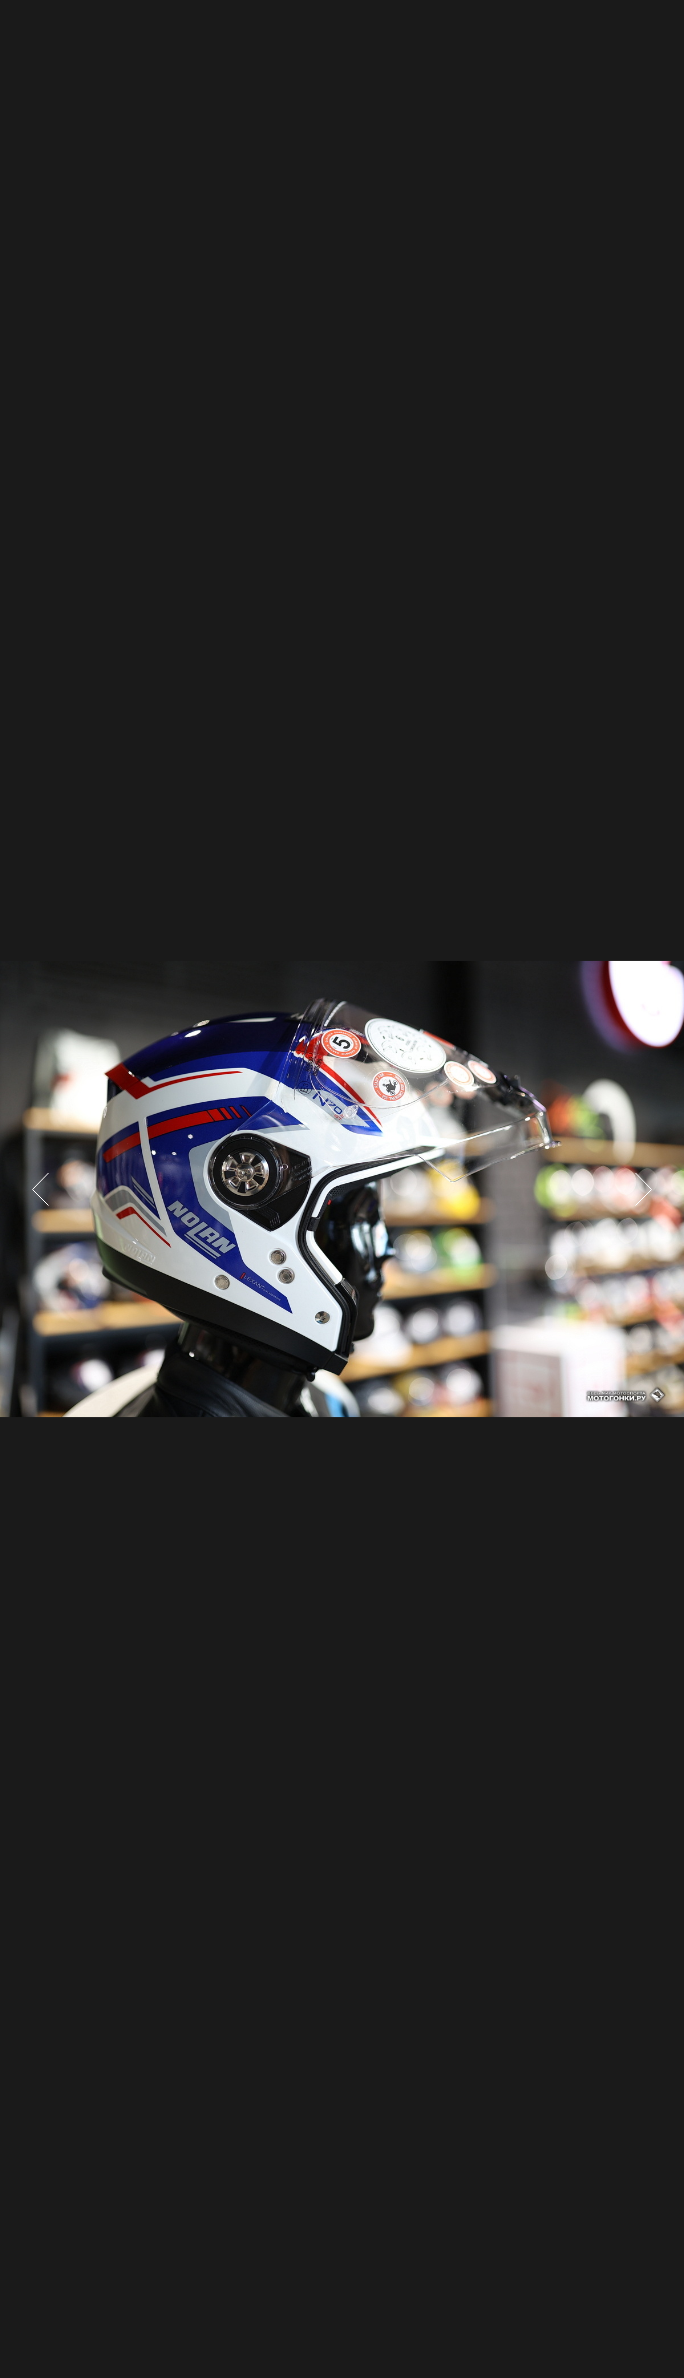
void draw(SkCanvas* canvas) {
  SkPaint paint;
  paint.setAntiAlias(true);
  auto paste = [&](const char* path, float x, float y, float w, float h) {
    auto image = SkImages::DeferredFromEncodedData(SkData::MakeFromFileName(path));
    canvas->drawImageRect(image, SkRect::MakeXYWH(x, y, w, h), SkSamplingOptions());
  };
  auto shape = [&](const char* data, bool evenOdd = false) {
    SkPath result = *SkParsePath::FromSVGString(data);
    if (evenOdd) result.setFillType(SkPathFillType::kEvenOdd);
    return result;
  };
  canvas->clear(0xff1a1a1a);
  paste("img/1.png", 0, 960, 684, 458);
  paint.setStroke(true);
  paint.setStrokeWidth(1);
  paint.setColor(0xffffffff);
  canvas->drawPath(shape("M48.5 1173L32.5 1189.5L48.5 1205.5"), paint);
  canvas->drawPath(shape("M635.5 1173L651.5 1189.5L635.5 1205.5"), paint);
}
